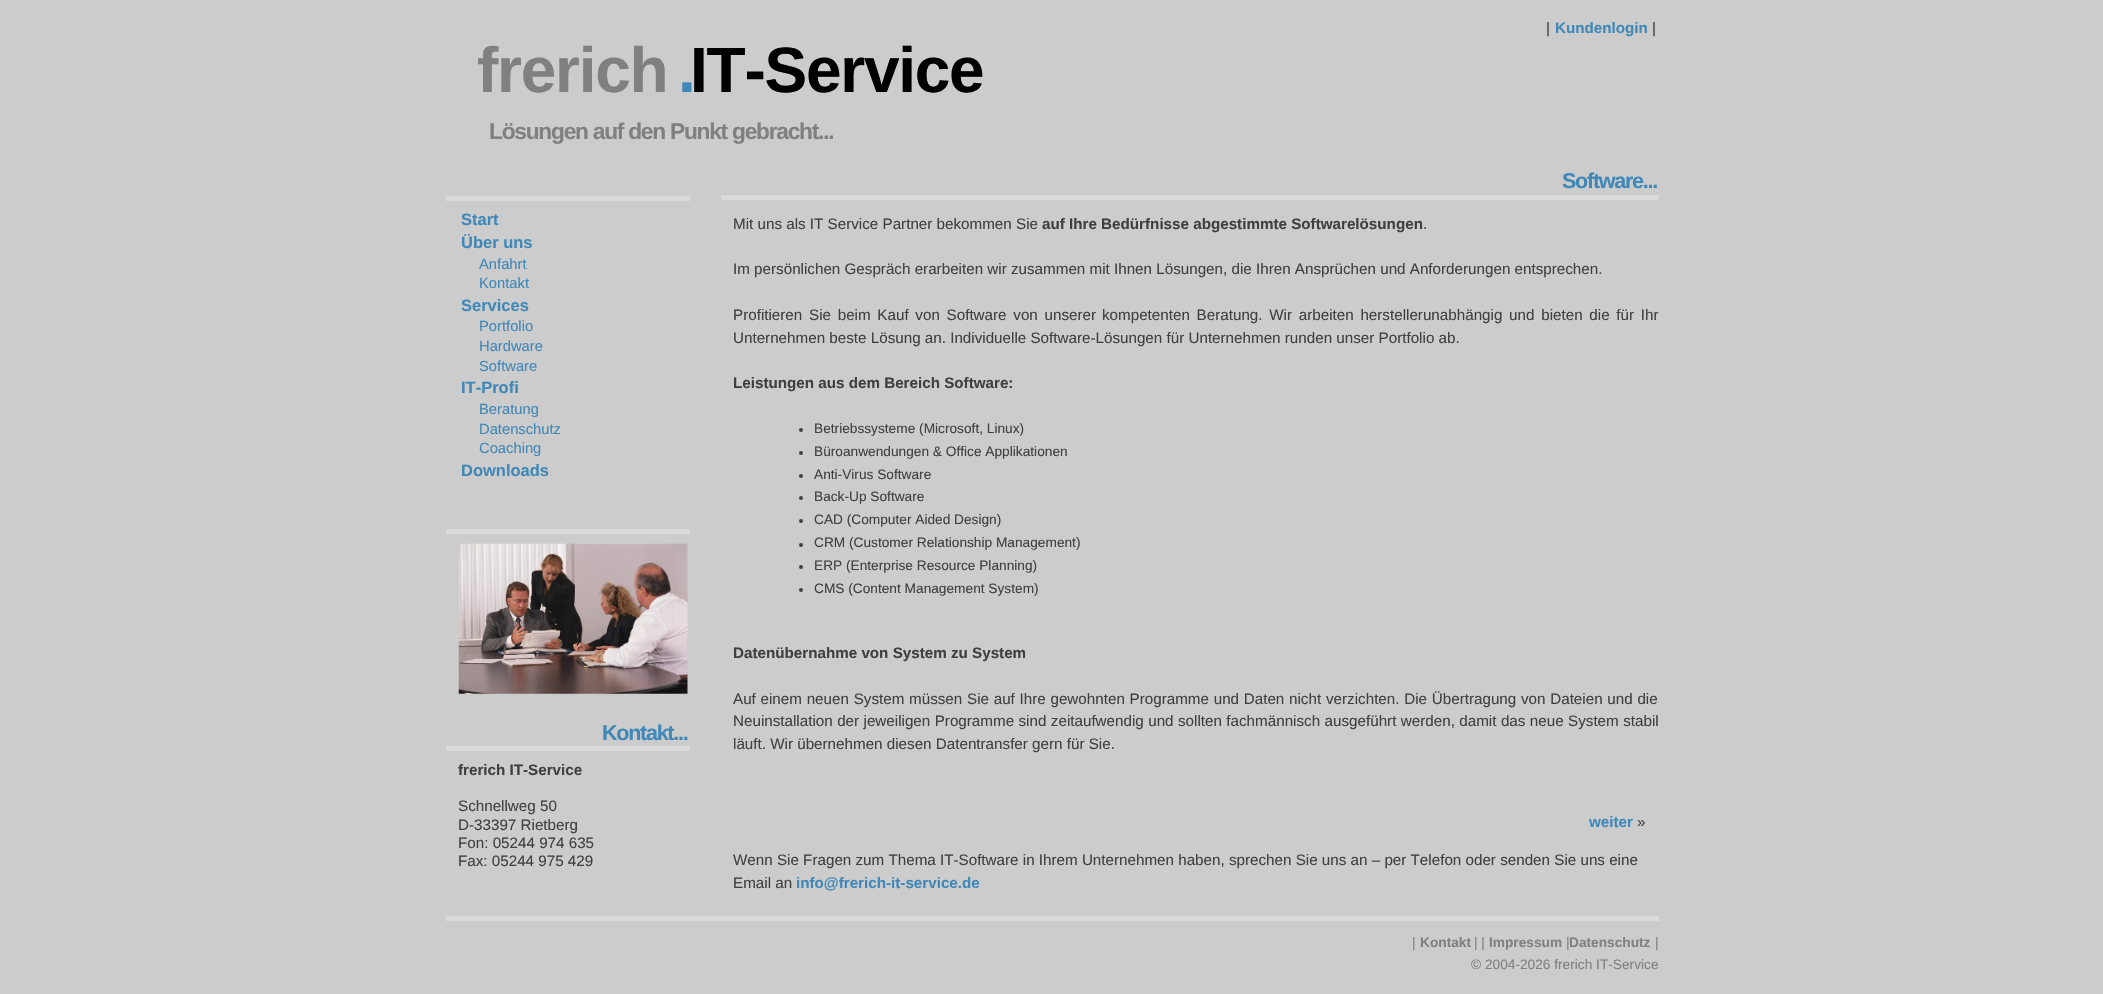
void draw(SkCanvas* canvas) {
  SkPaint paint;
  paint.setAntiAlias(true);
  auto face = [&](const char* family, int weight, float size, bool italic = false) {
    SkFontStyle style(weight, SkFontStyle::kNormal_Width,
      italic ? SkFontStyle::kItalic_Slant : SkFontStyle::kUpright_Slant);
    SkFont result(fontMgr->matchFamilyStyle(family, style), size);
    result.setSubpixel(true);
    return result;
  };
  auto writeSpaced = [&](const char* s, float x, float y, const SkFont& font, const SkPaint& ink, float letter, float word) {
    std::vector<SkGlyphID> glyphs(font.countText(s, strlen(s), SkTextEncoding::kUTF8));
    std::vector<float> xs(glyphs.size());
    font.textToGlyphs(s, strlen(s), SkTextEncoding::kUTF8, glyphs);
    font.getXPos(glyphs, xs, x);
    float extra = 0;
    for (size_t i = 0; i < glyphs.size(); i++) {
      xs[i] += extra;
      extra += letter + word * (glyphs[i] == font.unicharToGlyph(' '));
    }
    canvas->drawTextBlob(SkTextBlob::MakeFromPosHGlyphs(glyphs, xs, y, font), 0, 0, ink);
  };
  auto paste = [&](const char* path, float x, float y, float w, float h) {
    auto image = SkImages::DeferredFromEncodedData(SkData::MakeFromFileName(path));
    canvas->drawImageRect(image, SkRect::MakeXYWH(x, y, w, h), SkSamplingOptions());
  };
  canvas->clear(0xffcccccc);
  paint.setColor(0xffdadada);
  canvas->drawRect(SkRect::MakeXYWH(446, 196, 244, 5), paint);
  canvas->drawRect(SkRect::MakeXYWH(446, 529, 244, 5), paint);
  paste("img/1.png", 458, 543, 230, 151);
  canvas->drawRect(SkRect::MakeXYWH(446, 746, 244, 5), paint);
  canvas->drawRect(SkRect::MakeXYWH(721, 195, 938, 5), paint);
  paint.setColor(0xff404040);
  canvas->drawCircle(801, 430, 2, paint);
  canvas->drawCircle(801, 453, 2, paint);
  canvas->drawCircle(801, 476, 2, paint);
  canvas->drawCircle(801, 498, 2, paint);
  canvas->drawCircle(801, 521, 2, paint);
  canvas->drawCircle(801, 545, 2, paint);
  canvas->drawCircle(801, 567, 2, paint);
  canvas->drawCircle(801, 590, 2, paint);
  paint.setColor(0xffdadada);
  canvas->drawRect(SkRect::MakeXYWH(446, 916, 1213, 5), paint);
  auto f0 = face("Liberation Sans", 400, 15.2f);
  paint.setColor(0xff404040);
  canvas->drawString("|", 1546, 33, f0, paint);
  auto f1 = face("Liberation Sans", 700, 15.2f);
  paint.setColor(0xff4088b8);
  canvas->drawString("Kundenlogin", 1555, 33, f1, paint);
  paint.setColor(0xff404040);
  canvas->drawString("|", 1652, 33, f0, paint);
  auto f2 = face("Liberation Sans", 700, 64);
  paint.setColor(0xff808080);
  writeSpaced("frerich", 477, 92, f2, paint, -1.25f, 0);
  paint.setColor(0xff4088b8);
  writeSpaced(".", 678, 92, f2, paint, -6, 0);
  paint.setColor(0xff000000);
  writeSpaced("IT-Service", 690, 92, f2, paint, -1.25f, 0);
  auto f3 = face("Liberation Sans", 700, 22.75f);
  paint.setColor(0xff808080);
  writeSpaced("Lösungen auf den Punkt gebracht...", 489, 139, f3, paint, -1.25f, 0);
  auto f4 = face("Liberation Sans", 700, 16.5f);
  paint.setColor(0xff4088b8);
  canvas->drawString("Start", 461, 225, f4, paint);
  canvas->drawString("Über uns", 461, 248, f4, paint);
  auto f5 = face("Liberation Sans", 400, 14.75f);
  canvas->drawString("Anfahrt", 479, 269, f5, paint);
  canvas->drawString("Kontakt", 479, 288, f5, paint);
  canvas->drawString("Services", 461, 311, f4, paint);
  {
    const struct { const char* s; float x, y; } items[] = {
      {"Portfolio", 479, 331},
      {"Hardware", 479, 351},
      {"Software", 479, 371},
    };
    for (auto [s, x, y] : items) {
      canvas->drawString(s, x, y, f5, paint);
    }
  }
  canvas->drawString("IT-Profi", 461, 393, f4, paint);
  {
    const struct { const char* s; float x, y; } items[] = {
      {"Beratung", 479, 414},
      {"Datenschutz", 479, 434},
      {"Coaching", 479, 453},
    };
    for (auto [s, x, y] : items) {
      canvas->drawString(s, x, y, f5, paint);
    }
  }
  canvas->drawString("Downloads", 461, 476, f4, paint);
  auto f6 = face("Liberation Sans", 700, 21.5f);
  writeSpaced("Kontakt...", 602, 740, f6, paint, -1.25f, 0);
  paint.setColor(0xff404040);
  canvas->drawString("frerich IT-Service", 458, 775, f1, paint);
  {
    const struct { const char* s; float x, y; } items[] = {
      {"Schnellweg 50", 458, 811},
      {"D-33397 Rietberg", 458, 830},
      {"Fon: 05244 974 635", 458, 848},
      {"Fax: 05244 975 429", 458, 866},
    };
    for (auto [s, x, y] : items) {
      canvas->drawString(s, x, y, f0, paint);
    }
  }
  paint.setColor(0xff4088b8);
  writeSpaced("Software...", 1562, 188, f6, paint, -1.25f, 0);
  paint.setColor(0xff404040);
  canvas->drawString("Mit uns als IT Service Partner bekommen Sie", 733, 229, f0, paint);
  canvas->drawString("auf Ihre Bedürfnisse abgestimmte Softwarelösungen", 1042, 229, f1, paint);
  canvas->drawString(".", 1423, 229, f0, paint);
  canvas->drawString("Im persönlichen Gespräch erarbeiten wir zusammen mit Ihnen Lösungen, die Ihren Ansprüchen und Anforderungen entsprechen.", 733, 274, f0, paint);
  writeSpaced("Profitieren Sie beim Kauf von Software von unserer", 733, 320, f0, paint, 0, 2.5f);
  writeSpaced("kompetenten Beratung. Wir arbeiten herstellerunabhängig und bieten die für Ihr", 1102, 320, f0, paint, 0, 2.5f);
  canvas->drawString("Unternehmen beste Lösung an. Individuelle Software-Lösungen für Unternehmen runden unser Portfolio ab.", 733, 343, f0, paint);
  canvas->drawString("Leistungen aus dem Bereich Software:", 733, 388, f1, paint);
  auto f7 = face("Liberation Sans", 400, 13.7f);
  {
    const struct { const char* s; float x, y; } items[] = {
      {"Betriebssysteme (Microsoft, Linux)", 814, 433},
      {"Büroanwendungen & Office Applikationen", 814, 456},
      {"Anti-Virus Software", 814, 479},
      {"Back-Up Software", 814, 501},
      {"CAD (Computer Aided Design)", 814, 524},
      {"CRM (Customer Relationship Management)", 814, 547},
      {"ERP (Enterprise Resource Planning)", 814, 570},
      {"CMS (Content Management System)", 814, 593},
    };
    for (auto [s, x, y] : items) {
      canvas->drawString(s, x, y, f7, paint);
    }
  }
  canvas->drawString("Datenübernahme von System zu System", 733, 658, f1, paint);
  writeSpaced("Auf einem neuen System müssen Sie auf Ihre gewohnten Programme und Daten nicht", 733, 704, f0, paint, 0, 0.5f);
  writeSpaced("verzichten. Die Übertragung von Dateien und die", 1326, 704, f0, paint, 0, 0.5f);
  writeSpaced("Neuinstallation der jeweiligen Programme sind zeitaufwendig und sollten fachmännisch ausgeführt werden, damit das neue System stabil", 733, 726, f0, paint, 0, 0.2f);
  canvas->drawString("läuft. Wir übernehmen diesen Datentransfer gern für Sie.", 733, 749, f0, paint);
  paint.setColor(0xff4088b8);
  canvas->drawString("weiter", 1589, 827, f1, paint);
  paint.setColor(0xff404040);
  {
    const struct { const char* s; float x, y; } items[] = {
      {"»", 1637, 827},
      {"Wenn Sie Fragen zum Thema IT-Software in Ihrem Unternehmen haben, sprechen Sie uns an – per Telefon oder senden Sie uns eine", 733, 865},
      {"Email an", 733, 888},
    };
    for (auto [s, x, y] : items) {
      canvas->drawString(s, x, y, f0, paint);
    }
  }
  paint.setColor(0xff4088b8);
  canvas->drawString("info@frerich-it-service.de", 796, 888, f1, paint);
  paint.setColor(0xff808080);
  canvas->drawString("|", 1412, 947, f7, paint);
  auto f8 = face("Liberation Sans", 700, 13.7f);
  canvas->drawString("Kontakt", 1420, 947, f8, paint);
  canvas->drawString("| |", 1474, 947, f7, paint);
  canvas->drawString("Impressum", 1489, 947, f8, paint);
  canvas->drawString("|", 1566, 947, f7, paint);
  canvas->drawString("Datenschutz", 1569, 947, f8, paint);
  canvas->drawString("|", 1655, 947, f7, paint);
  canvas->drawString("© 2004-2026 frerich IT-Service", 1471, 969, f7, paint);
}
